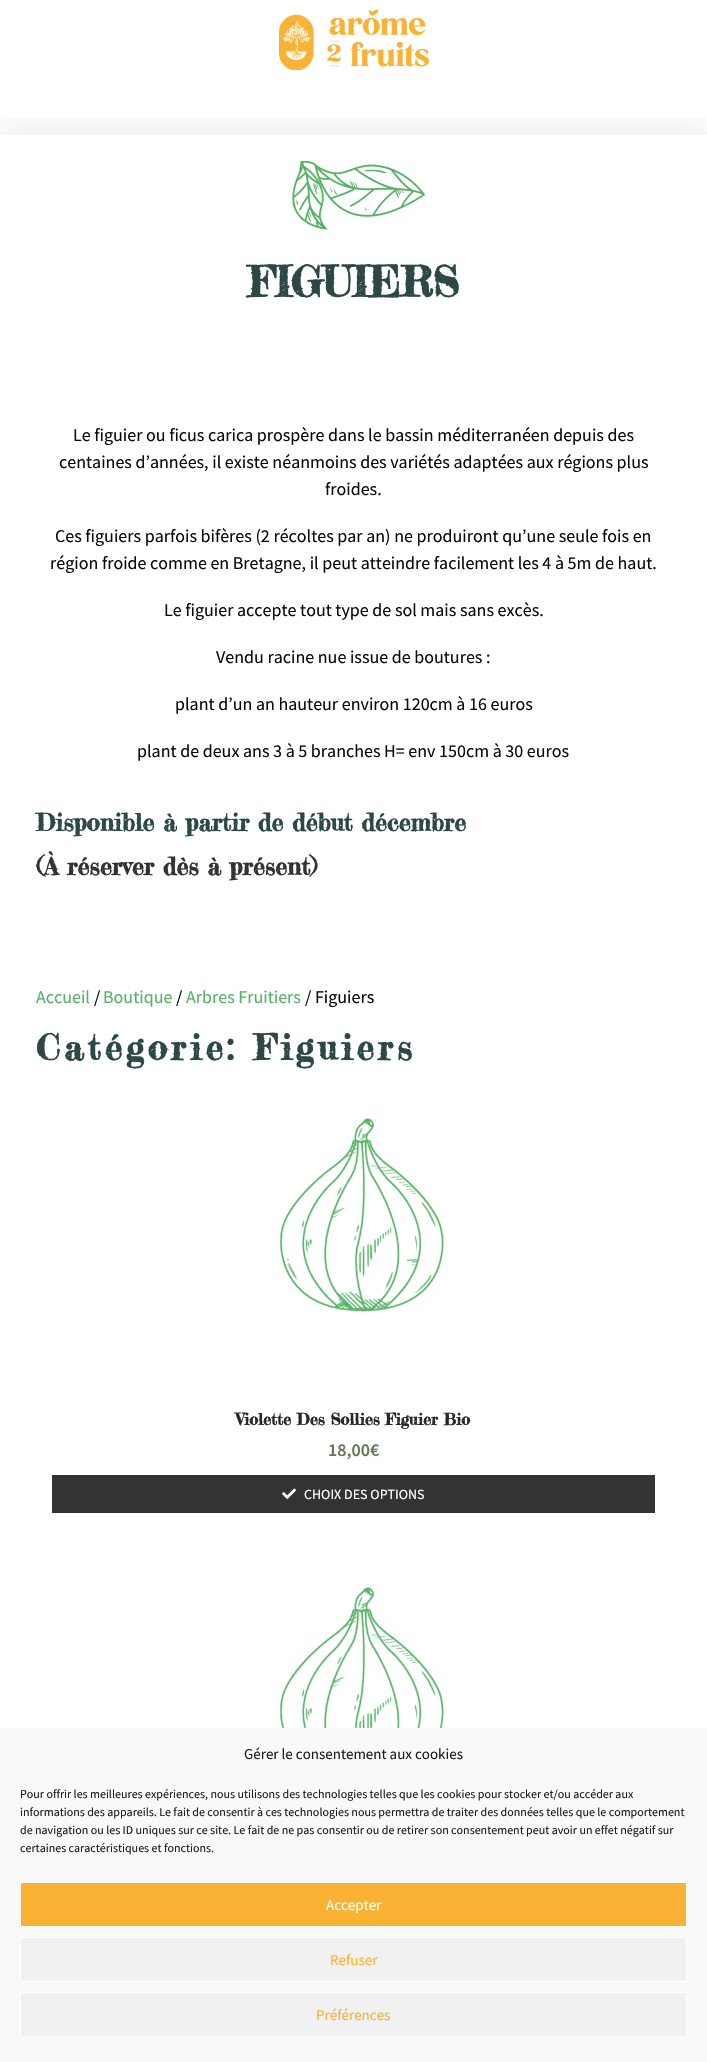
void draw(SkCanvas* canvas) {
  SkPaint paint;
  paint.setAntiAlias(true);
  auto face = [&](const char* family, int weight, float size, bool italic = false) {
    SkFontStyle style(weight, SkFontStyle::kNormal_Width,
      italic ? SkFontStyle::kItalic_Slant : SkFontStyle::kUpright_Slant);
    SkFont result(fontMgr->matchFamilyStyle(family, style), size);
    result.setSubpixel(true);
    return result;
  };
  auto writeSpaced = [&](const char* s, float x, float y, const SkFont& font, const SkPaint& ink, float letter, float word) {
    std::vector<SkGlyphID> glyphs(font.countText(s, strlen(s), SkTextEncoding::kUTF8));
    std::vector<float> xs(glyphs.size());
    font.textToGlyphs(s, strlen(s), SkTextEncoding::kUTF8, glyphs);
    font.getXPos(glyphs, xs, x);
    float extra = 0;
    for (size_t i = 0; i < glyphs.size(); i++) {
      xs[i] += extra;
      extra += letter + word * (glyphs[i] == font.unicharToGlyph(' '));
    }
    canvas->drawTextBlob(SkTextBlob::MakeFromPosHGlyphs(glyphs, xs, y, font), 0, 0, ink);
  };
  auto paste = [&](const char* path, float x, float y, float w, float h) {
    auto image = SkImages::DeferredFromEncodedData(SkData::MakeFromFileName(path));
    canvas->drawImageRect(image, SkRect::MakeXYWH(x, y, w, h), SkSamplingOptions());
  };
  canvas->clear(0xffffffff);
  paste("img/1.png", 279, 10, 150, 60);
  canvas->save();
  canvas->clipRect(SkRect::MakeXYWH(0, 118, 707, 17));
  paint.setColor(0x1a000000);
  paint.setMaskFilter(SkMaskFilter::MakeBlur(kNormal_SkBlurStyle, 20));
  canvas->drawRect(SkRect::MakeXYWH(0, 135, 707, 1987), paint);
  paint.setMaskFilter(nullptr);
  canvas->restore();
  paste("img/2.png", 292, 160, 133, 70);
  paste("img/3.png", 279, 1118, 165, 194);
  paint.setColor(0xff333333);
  canvas->drawRect(SkRect::MakeXYWH(52, 1475, 603, 38), paint);
  paste("img/4.png", 282, 1488, 14, 11);
  paste("img/5.png", 279, 1587, 165, 141);
  paint.setColor(0xfff9f9f9);
  canvas->drawRect(SkRect::MakeXYWH(0, 1728, 707, 334), paint);
  paint.setColor(0xfff9b233);
  canvas->drawRect(SkRect::MakeXYWH(20.5f, 1882.5f, 666, 44), paint);
  paint.setStroke(true);
  paint.setStrokeWidth(1);
  paint.setColor(0xffffffff);
  canvas->drawRect(SkRect::MakeXYWH(20.5f, 1882.5f, 666, 44), paint);
  paint.setStroke(false);
  paint.setColor(0xfff1f1f1);
  canvas->drawRect(SkRect::MakeXYWH(20.5f, 1937.5f, 666, 44), paint);
  paint.setStroke(true);
  paint.setColor(0xffffffff);
  canvas->drawRect(SkRect::MakeXYWH(20.5f, 1937.5f, 666, 44), paint);
  paint.setStroke(false);
  paint.setColor(0xfff1f1f1);
  canvas->drawRect(SkRect::MakeXYWH(20.5f, 1992.5f, 666, 44), paint);
  paint.setStroke(true);
  paint.setColor(0xffffffff);
  canvas->drawRect(SkRect::MakeXYWH(20.5f, 1992.5f, 666, 44), paint);
  auto f0 = face("Fredericka the Great", 700, 42);
  paint.setStroke(false);
  paint.setColor(0xff2c4846);
  canvas->drawString("FIGUIERS", 248, 297, f0, paint);
  auto f1 = face("Source Sans Pro", 400, 18);
  paint.setColor(0xff0a0a0a);
  {
    const struct { const char* s; float x, y; } items[] = {
      {"Le figuier ou ficus carica prospère dans le bassin méditerranéen depuis des", 73, 441},
      {"centaines d’années, il existe néanmoins des variétés adaptées aux régions plus", 59, 468},
      {"froides.", 325, 495},
      {"Ces figuiers parfois bifères (2 récoltes par an) ne produiront qu’une seule fois en", 55, 542},
      {"région froide comme en Bretagne, il peut atteindre facilement les 4 à 5m de haut.", 50, 569},
      {"Le figuier accepte tout type de sol mais sans excès.", 164, 616},
      {"Vendu racine nue issue de boutures :", 216, 663},
      {"plant d’un an hauteur environ 120cm à 16 euros", 175, 710},
      {"plant de deux ans 3 à 5 branches H= env 150cm à 30 euros", 137, 757},
    };
    for (auto [s, x, y] : items) {
      canvas->drawString(s, x, y, f1, paint);
    }
  }
  auto f2 = face("Fredericka the Great", 700, 24);
  paint.setColor(0xff2c4846);
  canvas->drawString("Disponible à partir de début décembre", 36, 831, f2, paint);
  paint.setColor(0xff333333);
  canvas->drawString("(À réserver dès à présent)", 36, 875, f2, paint);
  paint.setColor(0xff54b263);
  canvas->drawString("Accueil", 36, 1003, f1, paint);
  paint.setColor(0xff0a0a0a);
  canvas->drawString("/", 94, 1003, f1, paint);
  paint.setColor(0xff54b263);
  canvas->drawString("Boutique", 103, 1003, f1, paint);
  paint.setColor(0xff0a0a0a);
  canvas->drawString("/", 176, 1003, f1, paint);
  paint.setColor(0xff54b263);
  canvas->drawString("Arbres Fruitiers", 186, 1003, f1, paint);
  paint.setColor(0xff0a0a0a);
  canvas->drawString("/ Figuiers", 305, 1003, f1, paint);
  auto f3 = face("Fredericka the Great", 700, 35);
  paint.setColor(0xff2c4846);
  writeSpaced("Catégorie: Figuiers", 36, 1060, f3, paint, 4, 0);
  auto f4 = face("Fredericka the Great", 700, 16);
  paint.setColor(0xff272727);
  canvas->drawString("Violette Des Sollies Figuier Bio", 236, 1425, f4, paint);
  auto f5 = face("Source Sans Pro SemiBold", 600, 18);
  paint.setColor(0xff667458);
  canvas->drawString("18,00€", 328, 1456, f5, paint);
  auto f6 = face("Source Sans Pro", 400, 14);
  paint.setColor(0xffffffff);
  canvas->drawString("CHOIX DES OPTIONS", 304, 1499, f6, paint);
  auto f7 = face("Source Sans Pro", 400, 15);
  paint.setColor(0xff191e23);
  canvas->drawString("Gérer le consentement aux cookies", 244, 1759, f7, paint);
  auto f8 = face("Source Sans Pro", 400, 12);
  {
    const struct { const char* s; float x, y; } items[] = {
      {"Pour offrir les meilleures expériences, nous utilisons des technologies telles que les cookies pour stocker et/ou accéder aux", 20, 1798},
      {"informations des appareils. Le fait de consentir à ces technologies nous permettra de traiter des données telles que le comportement", 20, 1816},
      {"de navigation ou les ID uniques sur ce site. Le fait de ne pas consentir ou de retirer son consentement peut avoir un effet négatif sur", 20, 1834},
      {"certaines caractéristiques et fonctions.", 20, 1852},
    };
    for (auto [s, x, y] : items) {
      canvas->drawString(s, x, y, f8, paint);
    }
  }
  paint.setColor(0xffffffff);
  canvas->drawString("Accepter", 326, 1910, f7, paint);
  paint.setColor(0xfff9b233);
  canvas->drawString("Refuser", 330, 1965, f7, paint);
  canvas->drawString("Préférences", 316, 2020, f7, paint);
}
